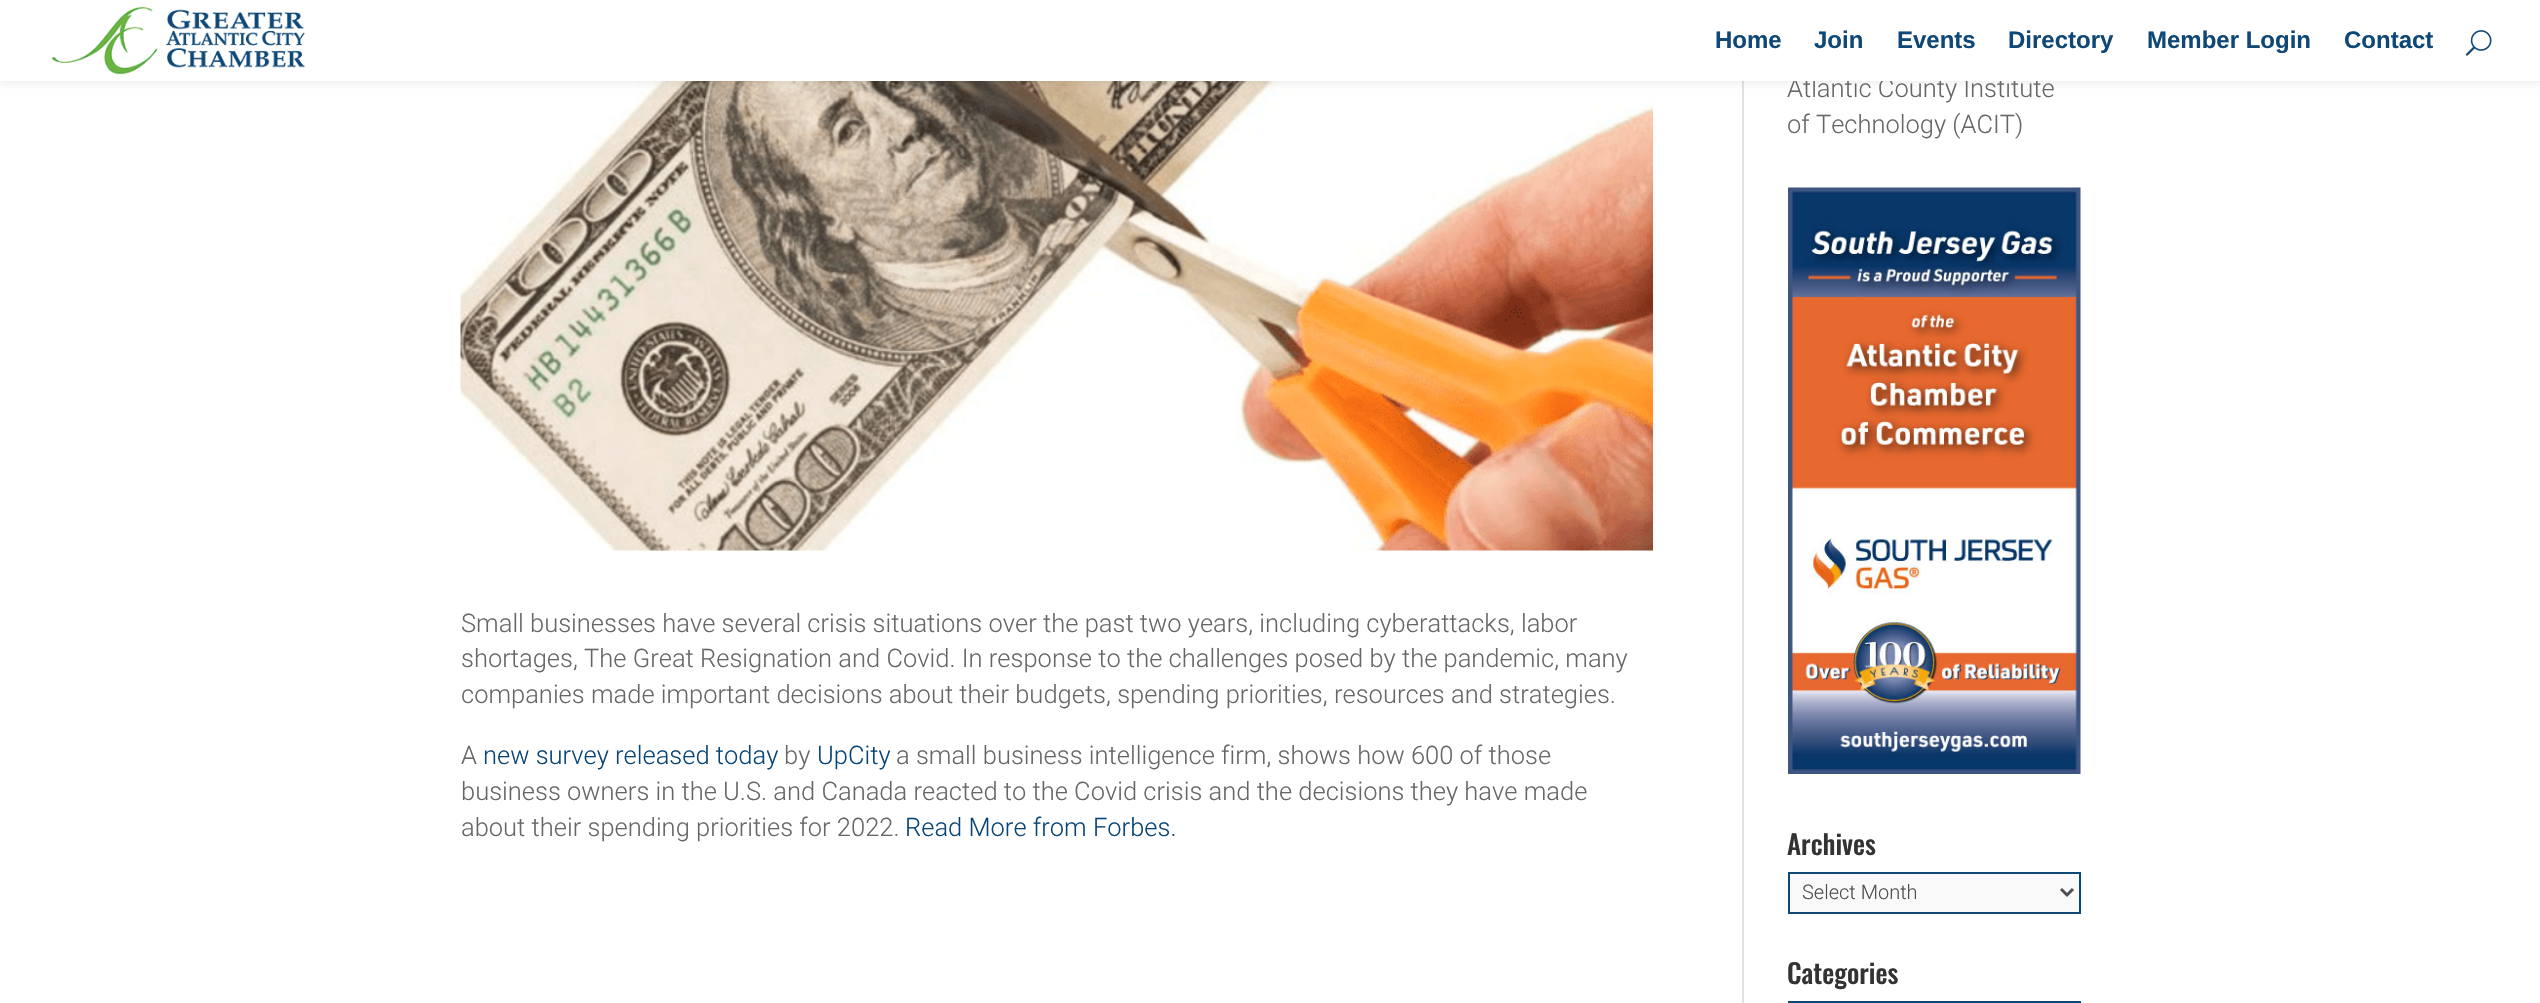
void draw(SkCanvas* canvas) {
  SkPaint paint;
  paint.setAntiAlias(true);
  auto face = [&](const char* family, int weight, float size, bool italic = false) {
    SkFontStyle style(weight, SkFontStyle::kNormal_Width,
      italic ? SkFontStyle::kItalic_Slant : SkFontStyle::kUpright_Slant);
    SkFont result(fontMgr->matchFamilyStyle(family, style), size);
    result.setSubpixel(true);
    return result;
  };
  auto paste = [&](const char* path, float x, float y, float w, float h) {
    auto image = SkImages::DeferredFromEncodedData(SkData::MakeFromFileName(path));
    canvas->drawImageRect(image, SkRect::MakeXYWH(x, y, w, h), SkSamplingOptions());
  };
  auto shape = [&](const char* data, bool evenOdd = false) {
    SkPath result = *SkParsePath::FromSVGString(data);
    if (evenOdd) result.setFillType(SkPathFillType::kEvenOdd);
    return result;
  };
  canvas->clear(0xffffffff);
  paste("img/3.png", 460, 81, 1193, 470);
  paint.setColor(0xffe2e2e2);
  canvas->drawRect(SkRect::MakeXYWH(1742, 81, 2, 922), paint);
  paint.setColor(0x1a000000);
  paint.setMaskFilter(SkMaskFilter::MakeBlur(kNormal_SkBlurStyle, 5));
  canvas->drawRect(SkRect::MakeXYWH(0, 0, 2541, 81), paint);
  paint.setMaskFilter(nullptr);
  paste("img/4.png", 1788, 187, 293, 587);
  paint.setColor(0xfff9f9f9);
  canvas->drawRect(SkRect::MakeXYWH(1789, 873, 291, 40), paint);
  paint.setStroke(true);
  paint.setStrokeWidth(2);
  paint.setColor(0xff0f4877);
  canvas->drawRect(SkRect::MakeXYWH(1789, 873, 291, 40), paint);
  paint.setStrokeWidth(3);
  paint.setColor(0xff4e4e4e);
  canvas->drawPath(shape("M2061 889L2067 895L2073 889"), paint);
  paint.setStrokeWidth(2);
  paint.setColor(0xff0f4877);
  canvas->drawRect(SkRect::MakeXYWH(1789, 1002, 291, 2), paint);
  auto f0 = face("Roboto", 300, 25.5f);
  paint.setStroke(false);
  paint.setColor(0xff666666);
  {
    const struct { const char* s; float x, y; } items[] = {
      {"Small businesses have several crisis situations over the past two years, including cyberattacks, labor", 461, 632},
      {"shortages, The Great Resignation and Covid. In response to the challenges posed by the pandemic, many", 461, 667},
      {"companies made important decisions about their budgets, spending priorities, resources and strategies.", 461, 703},
      {"A", 461, 764},
    };
    for (auto [s, x, y] : items) {
      canvas->drawString(s, x, y, f0, paint);
    }
  }
  paint.setColor(0xff084577);
  canvas->drawString("new survey released today", 483, 764, f0, paint);
  paint.setColor(0xff666666);
  canvas->drawString("by", 784, 764, f0, paint);
  paint.setColor(0xff084577);
  canvas->drawString("UpCity", 817, 764, f0, paint);
  paint.setColor(0xff666666);
  {
    const struct { const char* s; float x, y; } items[] = {
      {"a small business intelligence firm, shows how 600 of those", 896, 764},
      {"business owners in the U.S. and Canada reacted to the Covid crisis and the decisions they have made", 461, 800},
      {"about their spending priorities for 2022.", 461, 836},
    };
    for (auto [s, x, y] : items) {
      canvas->drawString(s, x, y, f0, paint);
    }
  }
  paint.setColor(0xff084577);
  canvas->drawString("Read More from Forbes.", 905, 836, f0, paint);
  paint.setColor(0xff666666);
  canvas->drawString("Atlantic County Institute", 1787, 97, f0, paint);
  paint.setColor(0xffffffff);
  canvas->drawRect(SkRect::MakeXYWH(0, 0, 2540, 81), paint);
  paste("img/2.png", 2465, 30, 27, 26);
  auto f1 = face("Liberation Sans", 700, 24);
  paint.setColor(0xff0f4877);
  {
    const struct { const char* s; float x, y; } items[] = {
      {"Contact", 2344, 48},
      {"Member Login", 2147, 48},
      {"Directory", 2008, 48},
      {"Events", 1897, 48},
      {"Join", 1814, 48},
      {"Home", 1715, 48},
    };
    for (auto [s, x, y] : items) {
      canvas->drawString(s, x, y, f1, paint);
    }
  }
  paste("img/1.png", 51, 6, 254, 69);
  paint.setColor(0xff666666);
  canvas->drawString("of Technology (ACIT)", 1787, 133, f0, paint);
  auto f2 = face("Oswald", 500, 27);
  paint.setColor(0xff333333);
  canvas->drawString("Archives", 1787, 855, f2, paint);
  auto f3 = face("Roboto", 300, 20);
  paint.setColor(0xff4e4e4e);
  canvas->drawString("Select Month", 1802, 899, f3, paint);
  paint.setColor(0xff333333);
  canvas->drawString("Categories", 1787, 984, f2, paint);
}
